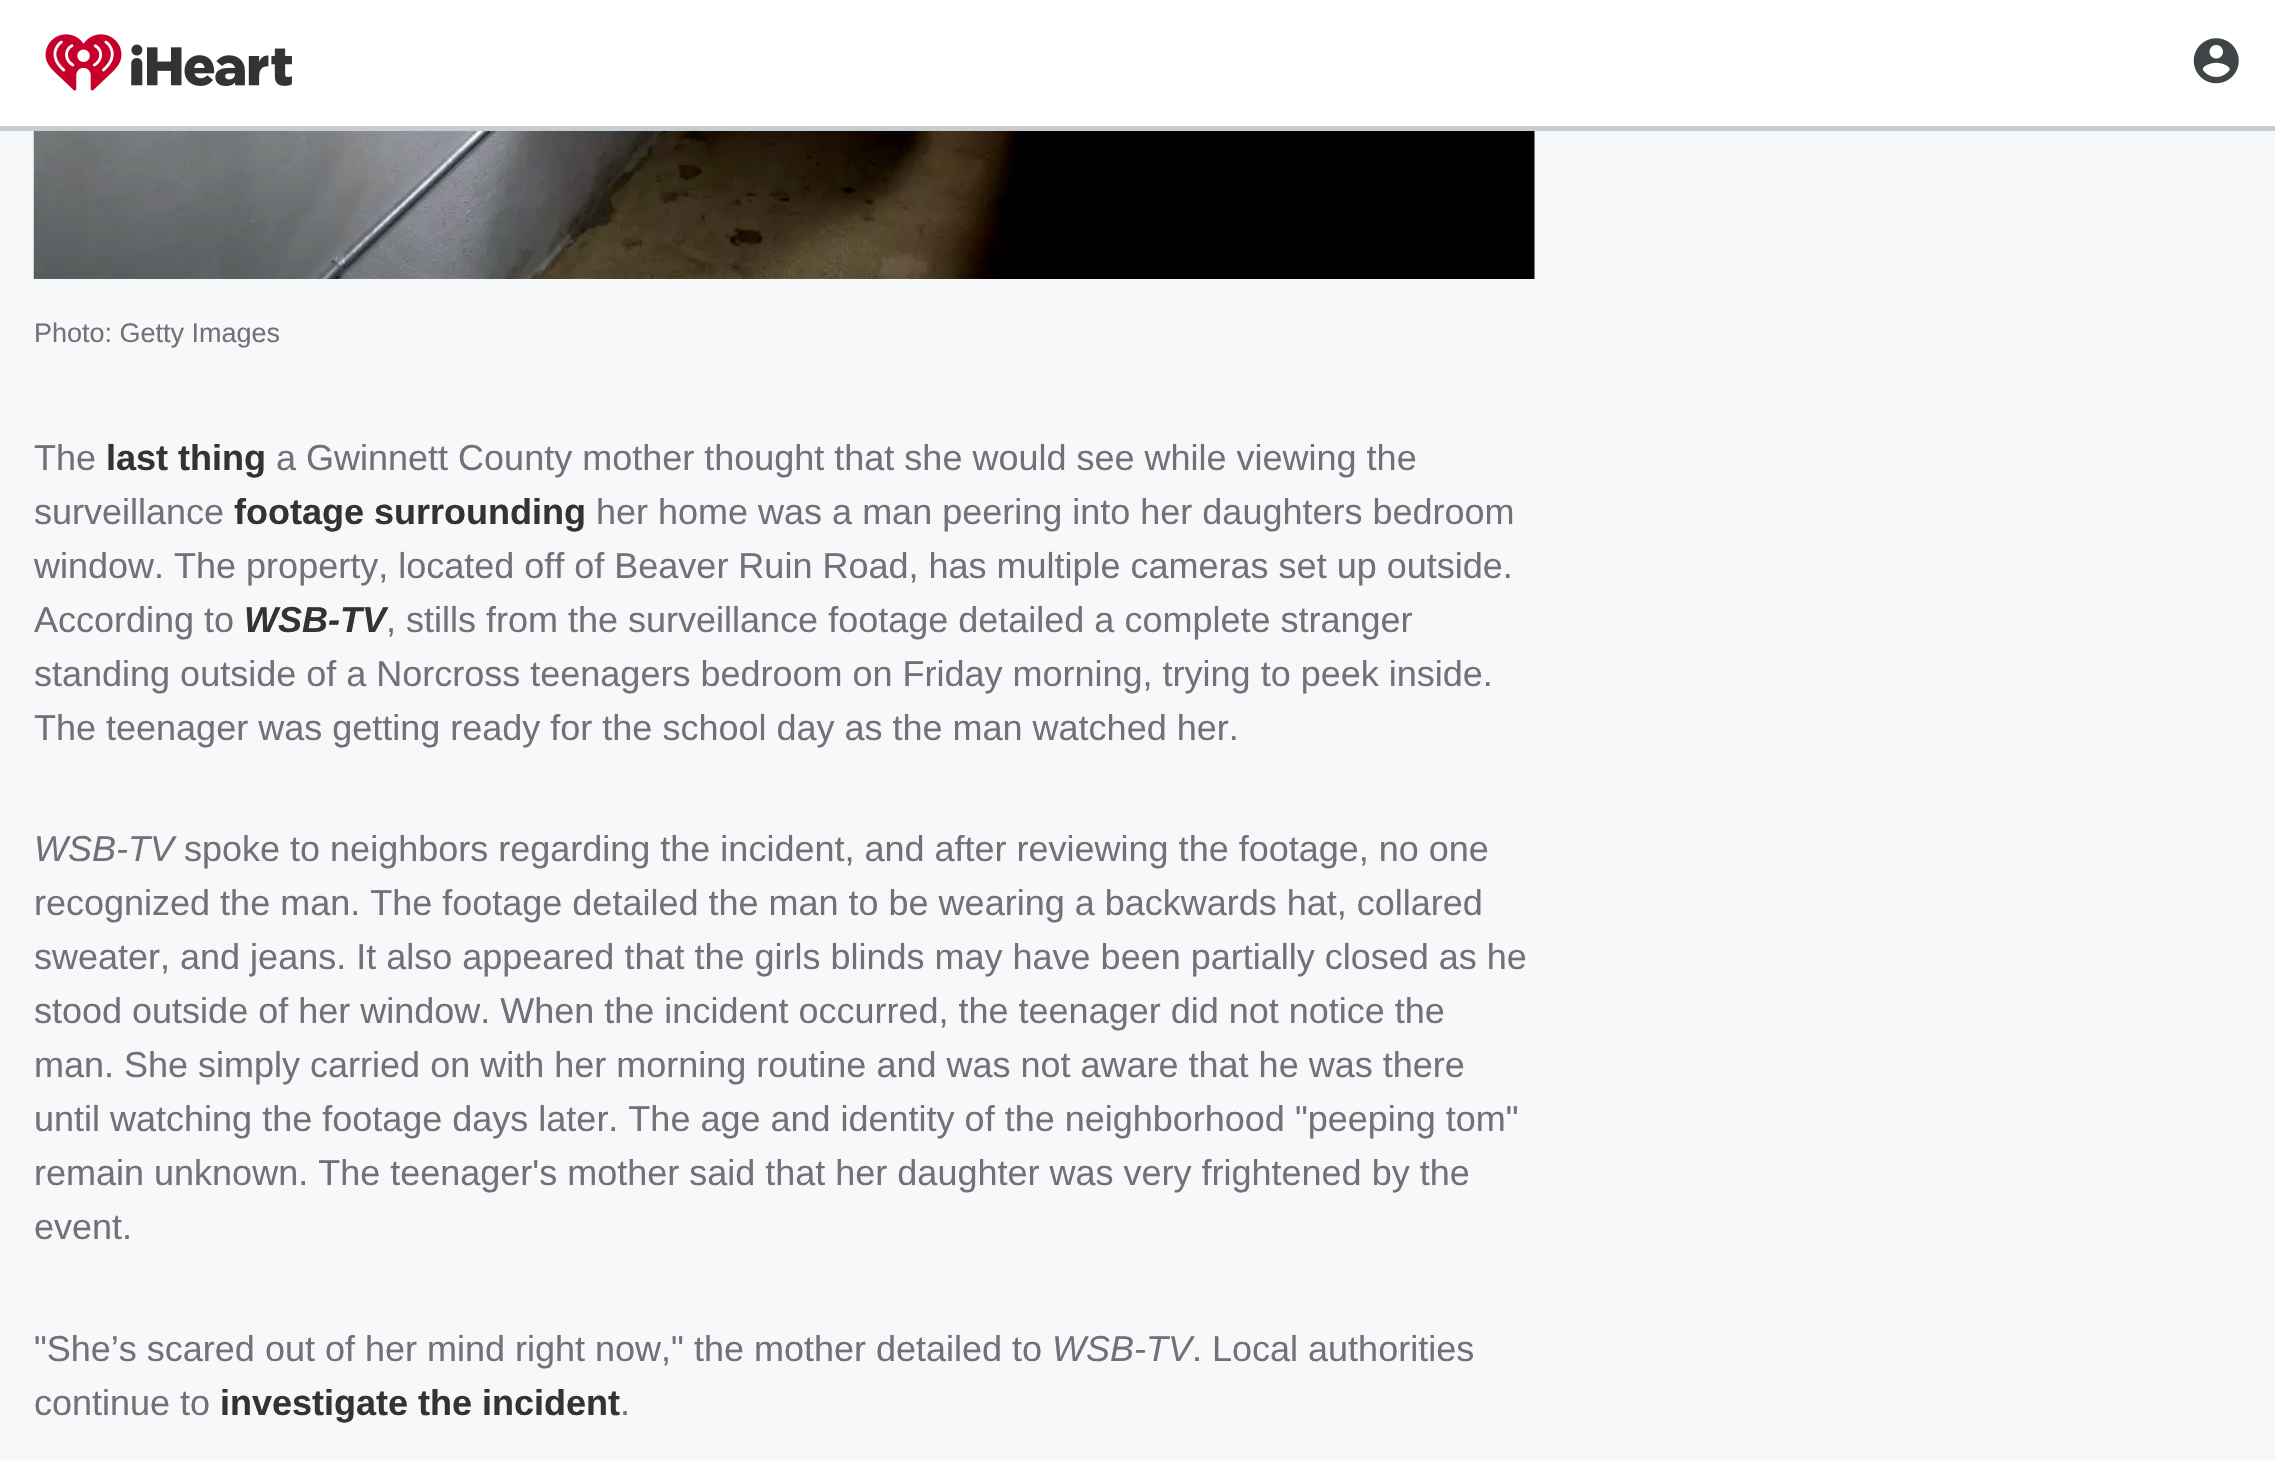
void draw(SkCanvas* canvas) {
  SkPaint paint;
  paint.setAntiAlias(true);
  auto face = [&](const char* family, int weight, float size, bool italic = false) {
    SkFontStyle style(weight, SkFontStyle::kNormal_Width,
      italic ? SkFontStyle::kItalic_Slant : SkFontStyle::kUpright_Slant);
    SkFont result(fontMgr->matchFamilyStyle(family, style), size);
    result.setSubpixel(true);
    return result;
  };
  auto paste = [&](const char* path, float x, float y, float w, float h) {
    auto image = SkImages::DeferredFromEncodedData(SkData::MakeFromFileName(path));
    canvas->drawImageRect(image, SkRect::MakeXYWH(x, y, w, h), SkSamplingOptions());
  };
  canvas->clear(0xfff6f8f9);
  paint.setColor(0xffffffff);
  canvas->drawRect(SkRect::MakeXYWH(0, 0, 2275, 126), paint);
  paint.setColor(0xffc5cdd2);
  canvas->drawRect(SkRect::MakeXYWH(0, 126, 2275, 5), paint);
  paste("img/1.png", 45, 34, 247, 57);
  paste("img/2.png", 2193, 38, 46, 46);
  paste("img/3.png", 33, 131, 1502, 148);
  auto f0 = face("Liberation Sans", 400, 27);
  paint.setColor(0xff717277);
  canvas->drawString("Photo: Getty Images", 34, 342, f0, paint);
  auto f1 = face("Liberation Sans", 400, 36);
  canvas->drawString("The", 34, 470, f1, paint);
  auto f2 = face("Liberation Sans", 700, 36);
  paint.setColor(0xff333333);
  canvas->drawString("last thing", 106, 470, f2, paint);
  paint.setColor(0xff717277);
  canvas->drawString("a Gwinnett County mother thought that she would see while viewing the", 276, 470, f1, paint);
  canvas->drawString("surveillance", 34, 524, f1, paint);
  paint.setColor(0xff333333);
  canvas->drawString("footage surrounding", 234, 524, f2, paint);
  paint.setColor(0xff717277);
  {
    const struct { const char* s; float x, y; } items[] = {
      {"her home was a man peering into her daughters bedroom", 596, 524},
      {"window. The property, located off of Beaver Ruin Road, has multiple cameras set up outside.", 34, 578},
      {"According to", 34, 632},
    };
    for (auto [s, x, y] : items) {
      canvas->drawString(s, x, y, f1, paint);
    }
  }
  auto f3 = face("Liberation Sans", 700, 36, true);
  paint.setColor(0xff333333);
  canvas->drawString("WSB-TV", 244, 632, f3, paint);
  paint.setColor(0xff717277);
  {
    const struct { const char* s; float x, y; } items[] = {
      {", stills from the surveillance footage detailed a complete stranger", 386, 632},
      {"standing outside of a Norcross teenagers bedroom on Friday morning, trying to peek inside.", 34, 686},
      {"The teenager was getting ready for the school day as the man watched her.", 34, 740},
    };
    for (auto [s, x, y] : items) {
      canvas->drawString(s, x, y, f1, paint);
    }
  }
  auto f4 = face("Liberation Sans", 400, 36, true);
  canvas->drawString("WSB-TV", 34, 861, f4, paint);
  {
    const struct { const char* s; float x, y; } items[] = {
      {"spoke to neighbors regarding the incident, and after reviewing the footage, no one", 184, 861},
      {"recognized the man. The footage detailed the man to be wearing a backwards hat, collared", 34, 915},
      {"sweater, and jeans. It also appeared that the girls blinds may have been partially closed as he", 34, 969},
      {"stood outside of her window. When the incident occurred, the teenager did not notice the", 34, 1023},
      {"man. She simply carried on with her morning routine and was not aware that he was there", 34, 1077},
      {"until watching the footage days later. The age and identity of the neighborhood \"peeping tom\"", 34, 1131},
      {"remain unknown. The teenager's mother said that her daughter was very frightened by the", 34, 1185},
      {"event.", 34, 1239},
      {"\"She’s scared out of her mind right now,\" the mother detailed to", 34, 1361},
    };
    for (auto [s, x, y] : items) {
      canvas->drawString(s, x, y, f1, paint);
    }
  }
  canvas->drawString("WSB-TV", 1052, 1361, f4, paint);
  canvas->drawString(". Local authorities", 1192, 1361, f1, paint);
  canvas->drawString("continue to", 34, 1415, f1, paint);
  paint.setColor(0xff333333);
  canvas->drawString("investigate the incident", 220, 1415, f2, paint);
  paint.setColor(0xff717277);
  canvas->drawString(".", 620, 1415, f1, paint);
}
